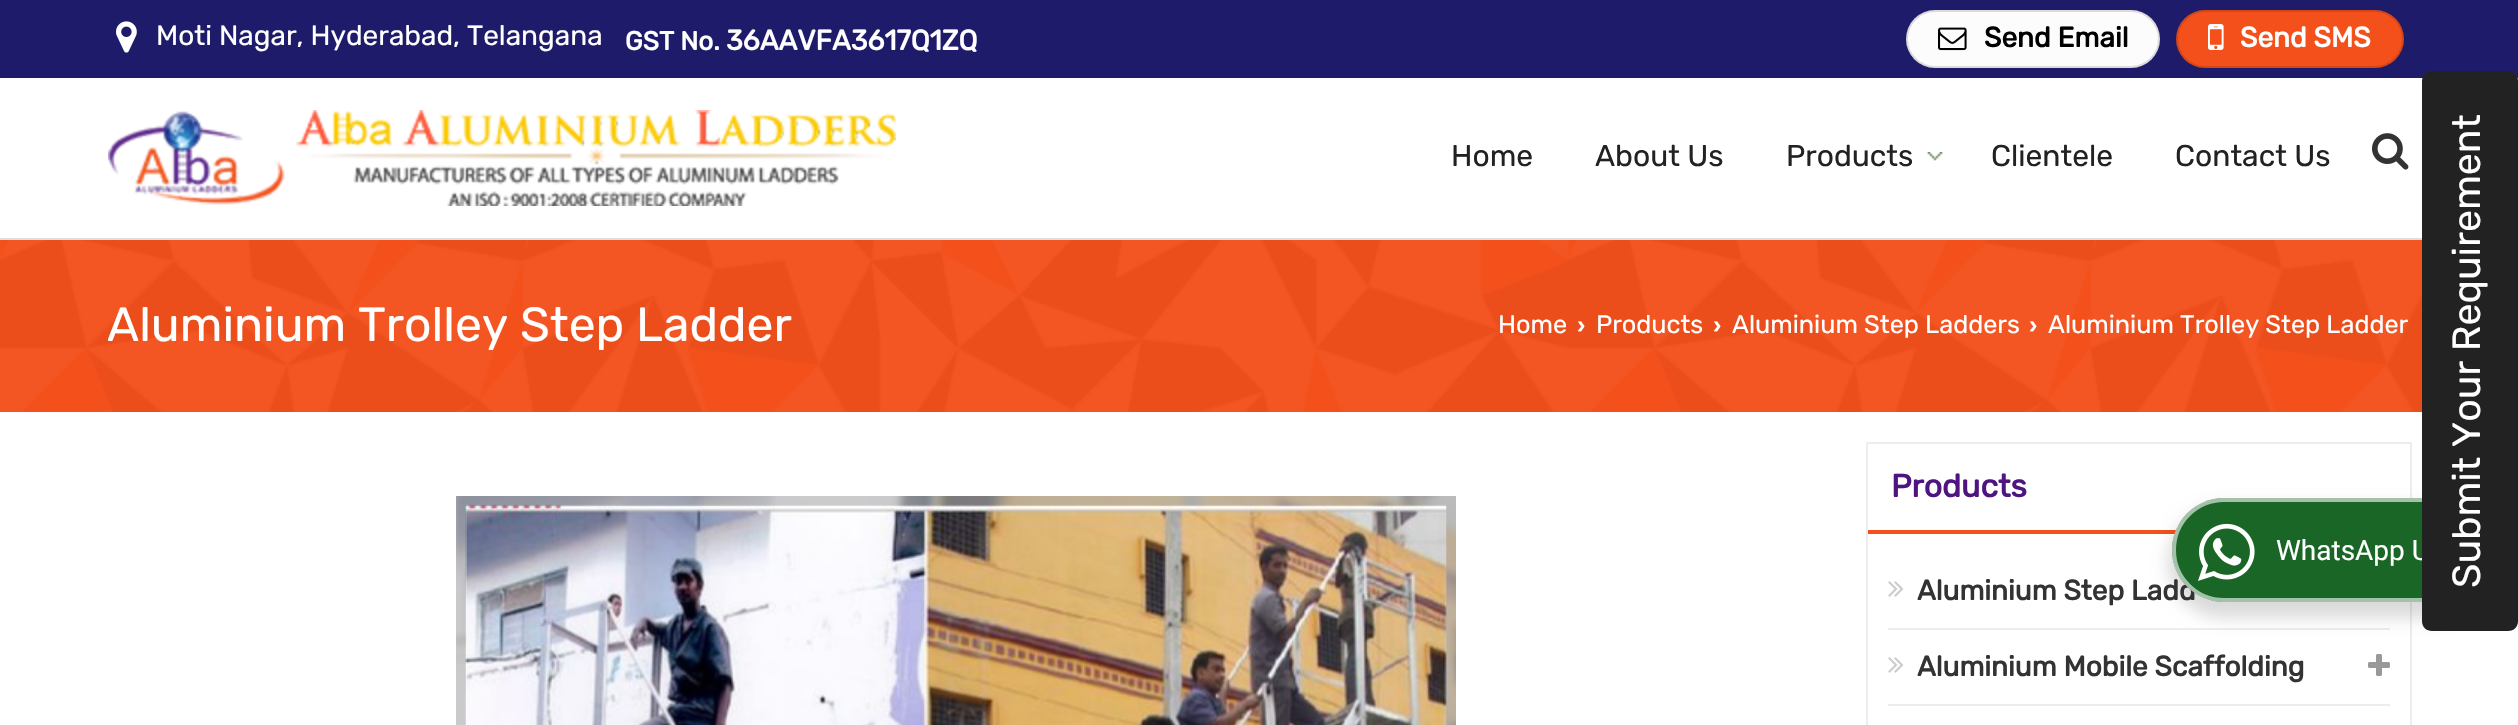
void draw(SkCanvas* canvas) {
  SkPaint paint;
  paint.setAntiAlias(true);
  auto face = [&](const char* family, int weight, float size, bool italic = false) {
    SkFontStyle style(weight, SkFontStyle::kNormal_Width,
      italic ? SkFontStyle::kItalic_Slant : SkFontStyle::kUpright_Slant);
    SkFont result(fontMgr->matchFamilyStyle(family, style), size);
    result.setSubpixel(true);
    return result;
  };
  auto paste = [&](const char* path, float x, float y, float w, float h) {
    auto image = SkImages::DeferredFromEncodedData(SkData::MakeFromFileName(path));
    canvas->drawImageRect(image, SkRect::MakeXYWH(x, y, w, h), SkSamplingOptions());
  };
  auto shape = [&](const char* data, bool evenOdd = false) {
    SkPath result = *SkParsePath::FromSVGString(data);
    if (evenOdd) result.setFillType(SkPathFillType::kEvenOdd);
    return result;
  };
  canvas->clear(0xffffffff);
  paint.setColor(0xff1f1b6b);
  canvas->drawRect(SkRect::MakeXYWH(0, 0, 2518, 78), paint);
  paste("img/1.png", 116, 21, 21, 32);
  paint.setColor(0xfffcfcfc);
  canvas->drawRoundRect(SkRect::MakeXYWH(1906, 10, 254, 58), 29, 29, paint);
  paint.setStroke(true);
  paint.setStrokeWidth(2);
  paint.setColor(0x21000000);
  canvas->drawRoundRect(SkRect::MakeXYWH(1907, 11, 252, 56), 28, 28, paint);
  paste("img/2.png", 1938, 27, 29, 24);
  paint.setStroke(false);
  paint.setColor(0xfff3501b);
  canvas->drawRoundRect(SkRect::MakeXYWH(2176, 10, 228, 58), 29, 29, paint);
  paint.setStroke(true);
  paint.setColor(0x21000000);
  canvas->drawRoundRect(SkRect::MakeXYWH(2177, 11, 226, 56), 28, 28, paint);
  paste("img/3.png", 2208, 24, 16, 26);
  paint.setStroke(false);
  paint.setColor(0xffdedede);
  canvas->drawRect(SkRect::MakeXYWH(0, 238, 2422, 2), paint);
  paste("img/4.png", 108, 110, 788, 96);
  paste("img/5.png", 1927, 152, 16, 9);
  paste("img/6.png", 2372, 133, 37, 37);
  paint.setStroke(true);
  paint.setColor(0xffededed);
  canvas->drawRect(SkRect::MakeXYWH(1867, 443, 544, 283), paint);
  paint.setStroke(false);
  paint.setColor(0xfff3501b);
  canvas->drawRect(SkRect::MakeXYWH(1868, 530, 308, 4), paint);
  paint.setColor(0xffededed);
  canvas->drawRect(SkRect::MakeXYWH(1888, 628, 502, 2), paint);
  paste("img/7.png", 1888, 581, 16, 16);
  canvas->drawRect(SkRect::MakeXYWH(1888, 704, 502, 2), paint);
  paste("img/7.png", 1888, 657, 16, 16);
  paste("img/8.png", 2368, 654, 22, 22);
  paste("img/9.png", 456, 496, 1000, 229);
  canvas->save();
  canvas->clipRect(SkRect::MakeXYWH(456, 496, 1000, 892));
  paint.setColor(0x80ffffff);
  paint.setMaskFilter(SkMaskFilter::MakeBlur(kNormal_SkBlurStyle, 4));
  canvas->drawRect(SkRect::MakeXYWH(456, 476, 1020, 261), paint);
  paint.setMaskFilter(nullptr);
  canvas->restore();
  paint.setStroke(true);
  paint.setStrokeWidth(10);
  paint.setColor(0x33000000);
  canvas->drawRect(SkRect::MakeXYWH(461, 501, 990, 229), paint);
  paste("img/10.png", 465, 504, 982, 221);
  paint.setStroke(false);
  paint.setColor(0xfff3501b);
  canvas->drawRect(SkRect::MakeXYWH(0, 240, 2422, 172), paint);
  paste("img/11.png", 0, 240, 2422, 172);
  paint.setColor(0x24000000);
  paint.setMaskFilter(SkMaskFilter::MakeBlur(kNormal_SkBlurStyle, 8));
  canvas->drawRoundRect(SkRect::MakeXYWH(2168, 506, 324, 112), 56, 56, paint);
  paint.setMaskFilter(nullptr);
  auto f0 = face("Rubik", 300, 28);
  paint.setColor(0xffffffff);
  canvas->drawString("Moti Nagar, Hyderabad, Telangana", 156, 45, f0, paint);
  auto f1 = face("Rubik", 700, 26);
  canvas->drawString("GST No.", 625, 50, f1, paint);
  auto f2 = face("Rubik", 700, 28);
  canvas->drawString("36AAVFA3617Q1ZQ", 726, 50, f2, paint);
  paint.setColor(0xff000000);
  canvas->drawString("Send Email", 1984, 47, f2, paint);
  paint.setColor(0xffffffff);
  canvas->drawString("Send SMS", 2240, 47, f2, paint);
  auto f3 = face("Rubik", 300, 30);
  paint.setColor(0xff222222);
  {
    const struct { const char* s; float x, y; } items[] = {
      {"Home", 1451, 166},
      {"About Us", 1595, 166},
      {"Products", 1786, 166},
      {"Clientele", 1991, 166},
      {"Contact Us", 2175, 166},
    };
    for (auto [s, x, y] : items) {
      canvas->drawString(s, x, y, f3, paint);
    }
  }
  auto f4 = face("Rubik", 700, 32);
  paint.setColor(0xff4e1580);
  canvas->drawString("Products", 1891, 497, f4, paint);
  paint.setColor(0xff333333);
  canvas->drawString("Aluminium Step Ladd", 1917, 600, f2, paint);
  canvas->drawString("Aluminium Mobile Scaffolding", 1917, 676, f2, paint);
  auto f5 = face("Rubik", 300, 48);
  paint.setColor(0xffffffff);
  canvas->drawString("Aluminium Trolley Step Ladder", 107, 341, f5, paint);
  auto f6 = face("Rubik", 300, 25.25f);
  canvas->drawString("Home", 1498, 333, f6, paint);
  auto f7 = face("Liberation Sans", 700, 25.25f);
  canvas->drawString("›", 1577, 333, f7, paint);
  canvas->drawString("Products", 1596, 333, f6, paint);
  canvas->drawString("›", 1713, 333, f7, paint);
  canvas->drawString("Aluminium Step Ladders", 1732, 333, f6, paint);
  canvas->drawString("›", 2029, 333, f7, paint);
  canvas->drawString("Aluminium Trolley Step Ladder", 2048, 333, f6, paint);
  paint.setColor(0xff196626);
  canvas->drawRoundRect(SkRect::MakeXYWH(2172, 498, 316, 104), 52, 52, paint);
  paint.setStroke(true);
  paint.setStrokeWidth(4);
  paint.setColor(0x99ffffff);
  canvas->drawRoundRect(SkRect::MakeXYWH(2174, 500, 312, 100), 50, 50, paint);
  paste("img/12.png", 2198, 523, 57, 58);
  auto f8 = face("Roboto", 400, 28);
  paint.setStroke(false);
  paint.setColor(0xffffffff);
  canvas->drawString("WhatsApp U", 2276, 560, f8, paint);
  paint.setColor(0xff222222);
  canvas->drawPath(shape("M2422 621V81C2422 76 2426 71 2432 71H2508C2514 71 2518 76 2518 81V621C2518 627 2514 631 2508 631H2432C2426 631 2422 627 2422 621Z"), paint);
  auto f9 = face("Rubik", 300, 39.25f);
  paint.setColor(0xffffffff);
  canvas->save();
  canvas->rotate(-90, 2480, 588);
  canvas->drawString("Submit Your Requirement", 2480, 588, f9, paint);
  canvas->restore();
}
